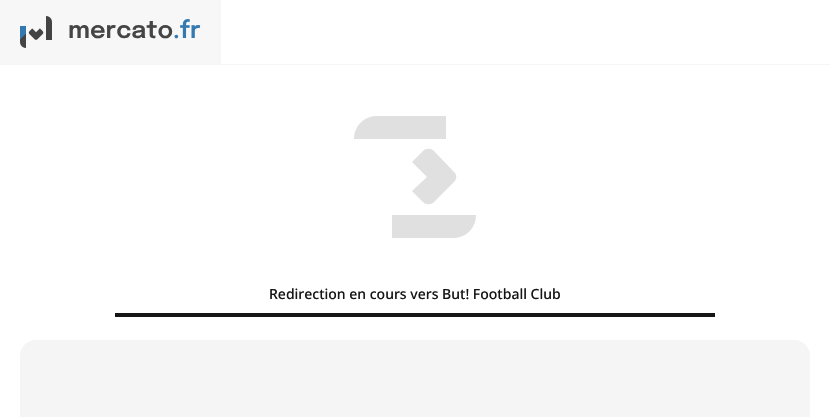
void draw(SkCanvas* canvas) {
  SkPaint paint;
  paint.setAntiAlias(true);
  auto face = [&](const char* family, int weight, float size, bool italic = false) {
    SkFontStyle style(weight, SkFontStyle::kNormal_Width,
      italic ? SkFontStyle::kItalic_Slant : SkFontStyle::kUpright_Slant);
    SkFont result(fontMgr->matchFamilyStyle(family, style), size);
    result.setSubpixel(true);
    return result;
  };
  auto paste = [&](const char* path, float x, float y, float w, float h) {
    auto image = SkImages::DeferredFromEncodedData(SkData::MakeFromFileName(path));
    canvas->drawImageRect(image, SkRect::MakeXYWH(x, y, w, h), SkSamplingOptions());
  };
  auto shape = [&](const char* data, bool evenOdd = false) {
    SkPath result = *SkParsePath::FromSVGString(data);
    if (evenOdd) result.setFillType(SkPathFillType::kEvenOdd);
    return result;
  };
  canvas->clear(0xffffffff);
  paint.setColor(0xfff5f5f5);
  canvas->drawRect(SkRect::MakeXYWH(0, 64, 830, 1), paint);
  paint.setColor(0xfff7f7f7);
  canvas->drawRect(SkRect::MakeXYWH(0, 0, 221, 64), paint);
  paste("img/1.png", 20, 16, 32, 32);
  paint.setColor(0xffe0e0e0);
  canvas->drawPath(shape("M446 139V116H377C364 116 354 126 354 139Z", true), paint);
  canvas->drawPath(shape("M454 182L434 202C431 205 426 205 423 202L412 191L427 177L412 162L423 151C426 148 431 148 434 151L454 172C457 174 457 179 454 182Z", true), paint);
  canvas->drawPath(shape("M476 215H392V238H453C466 238 476 228 476 215Z", true), paint);
  paint.setColor(0xff161616);
  canvas->drawRect(SkRect::MakeXYWH(115, 313, 600, 4), paint);
  paint.setColor(0xfff5f5f5);
  canvas->drawRoundRect(SkRect::MakeXYWH(20, 340, 790, 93), 16, 16, paint);
  auto f0 = face("Epilogue", 600, 24);
  paint.setColor(0xff454545);
  canvas->drawString("mercato", 68, 38, f0, paint);
  paint.setColor(0xff3479af);
  canvas->drawString(".fr", 173, 38, f0, paint);
  auto f1 = face("Noto Sans", 500, 14);
  paint.setColor(0xff161616);
  canvas->drawString("Redirection en cours vers But! Football Club", 269, 299, f1, paint);
}
